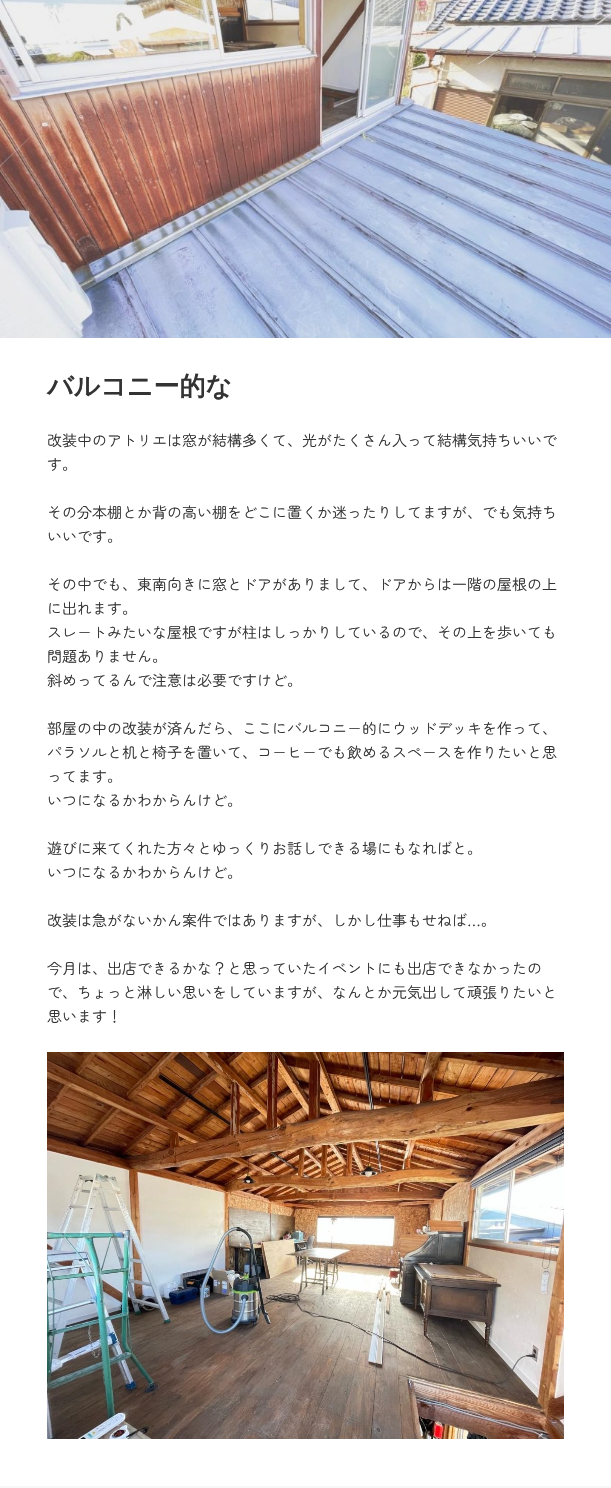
void draw(SkCanvas* canvas) {
  SkPaint paint;
  paint.setAntiAlias(true);
  auto face = [&](const char* family, int weight, float size, bool italic = false) {
    SkFontStyle style(weight, SkFontStyle::kNormal_Width,
      italic ? SkFontStyle::kItalic_Slant : SkFontStyle::kUpright_Slant);
    SkFont result(fontMgr->matchFamilyStyle(family, style), size);
    result.setSubpixel(true);
    return result;
  };
  auto paste = [&](const char* path, float x, float y, float w, float h) {
    auto image = SkImages::DeferredFromEncodedData(SkData::MakeFromFileName(path));
    canvas->drawImageRect(image, SkRect::MakeXYWH(x, y, w, h), SkSamplingOptions());
  };
  canvas->clear(0xffffffff);
  paste("img/1.png", 0, 0, 611, 338);
  paste("img/2.png", 47, 1052, 517, 387);
  paint.setColor(0xfff7f7f7);
  canvas->drawRect(SkRect::MakeXYWH(0, 1486, 611, 2), paint);
  auto f0 = face("WenQuanYi Zen Hei", 700, 26);
  paint.setColor(0xff333333);
  canvas->drawString("バルコニー的な", 47, 395, f0, paint);
  auto f1 = face("Zen Maru Gothic", 400, 15);
  {
    const struct { const char* s; float x, y; } items[] = {
      {"改装中のアトリエは窓が結構多くて、光がたくさん入って結構気持ちいいで", 47, 446},
      {"す。", 47, 470},
      {"その分本棚とか背の高い棚をどこに置くか迷ったりしてますが、でも気持ち", 47, 518},
      {"いいです。", 47, 542},
      {"その中でも、東南向きに窓とドアがありまして、ドアからは一階の屋根の上", 47, 590},
      {"に出れます。", 47, 614},
      {"スレートみたいな屋根ですが柱はしっかりしているので、その上を歩いても", 47, 638},
      {"問題ありません。", 47, 662},
      {"斜めってるんで注意は必要ですけど。", 47, 686},
      {"部屋の中の改装が済んだら、ここにバルコニー的にウッドデッキを作って、", 47, 734},
      {"パラソルと机と椅子を置いて、コーヒーでも飲めるスペースを作りたいと思", 47, 758},
      {"ってます。", 47, 782},
      {"いつになるかわからんけど。", 47, 806},
      {"遊びに来てくれた方々とゆっくりお話しできる場にもなればと。", 47, 854},
      {"いつになるかわからんけど。", 47, 878},
      {"改装は急がないかん案件ではありますが、しかし仕事もせねば…。", 47, 926},
      {"今月は、出店できるかな？と思っていたイベントにも出店できなかったの", 47, 974},
      {"で、ちょっと淋しい思いをしていますが、なんとか元気出して頑張りたいと", 47, 998},
      {"思います！", 47, 1022},
    };
    for (auto [s, x, y] : items) {
      canvas->drawString(s, x, y, f1, paint);
    }
  }
}
